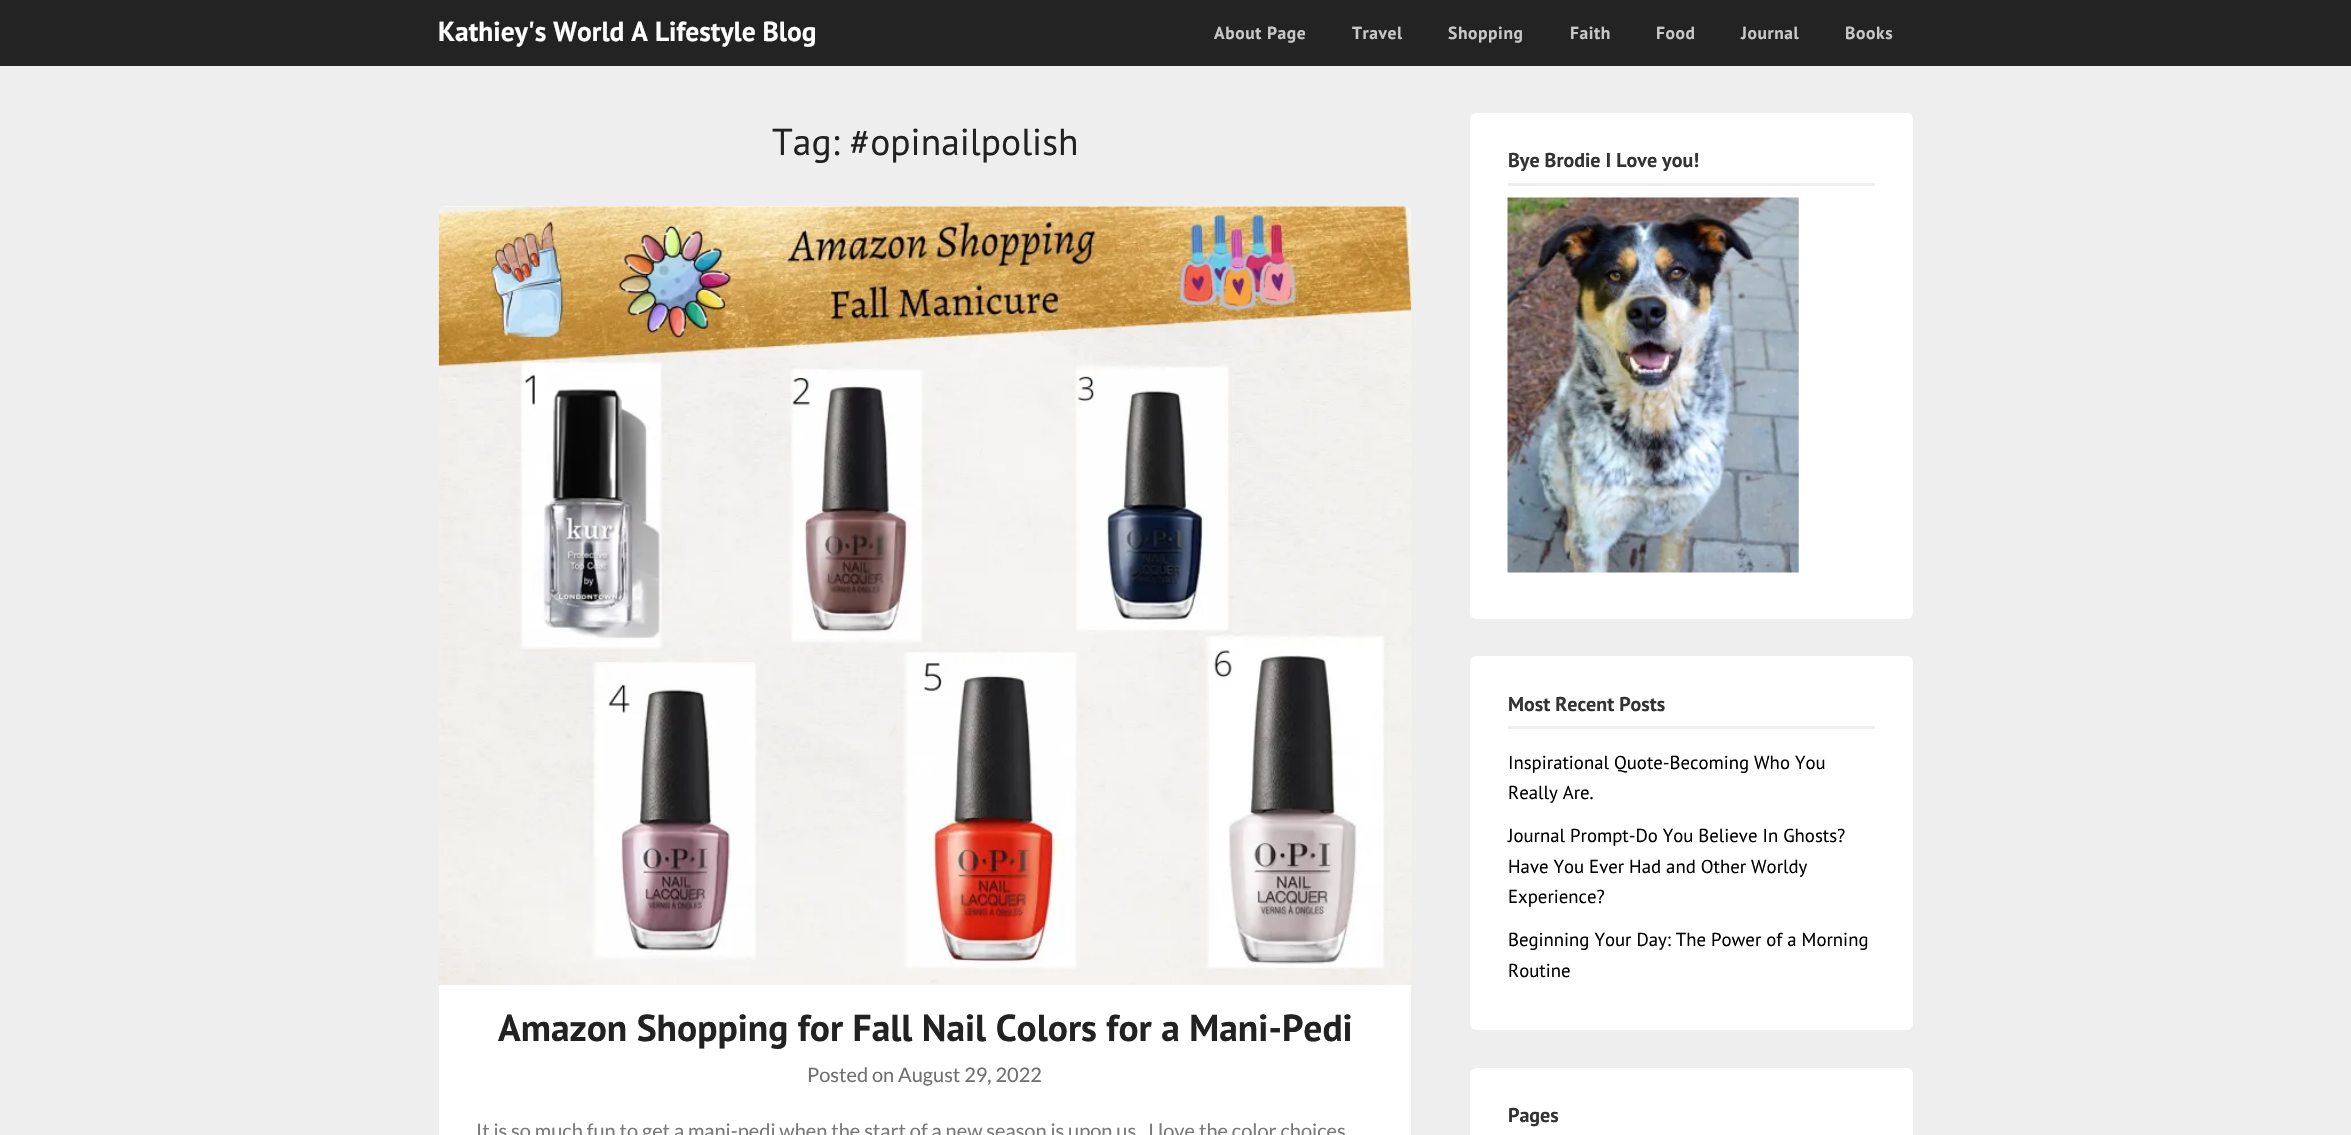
void draw(SkCanvas* canvas) {
  SkPaint paint;
  paint.setAntiAlias(true);
  auto face = [&](const char* family, int weight, float size, bool italic = false) {
    SkFontStyle style(weight, SkFontStyle::kNormal_Width,
      italic ? SkFontStyle::kItalic_Slant : SkFontStyle::kUpright_Slant);
    SkFont result(fontMgr->matchFamilyStyle(family, style), size);
    result.setSubpixel(true);
    return result;
  };
  auto writeSpaced = [&](const char* s, float x, float y, const SkFont& font, const SkPaint& ink, float letter, float word) {
    std::vector<SkGlyphID> glyphs(font.countText(s, strlen(s), SkTextEncoding::kUTF8));
    std::vector<float> xs(glyphs.size());
    font.textToGlyphs(s, strlen(s), SkTextEncoding::kUTF8, glyphs);
    font.getXPos(glyphs, xs, x);
    float extra = 0;
    for (size_t i = 0; i < glyphs.size(); i++) {
      xs[i] += extra;
      extra += letter + word * (glyphs[i] == font.unicharToGlyph(' '));
    }
    canvas->drawTextBlob(SkTextBlob::MakeFromPosHGlyphs(glyphs, xs, y, font), 0, 0, ink);
  };
  auto paste = [&](const char* path, float x, float y, float w, float h) {
    auto image = SkImages::DeferredFromEncodedData(SkData::MakeFromFileName(path));
    canvas->drawImageRect(image, SkRect::MakeXYWH(x, y, w, h), SkSamplingOptions());
  };
  canvas->clear(0xffeeeeee);
  paint.setColor(0xff232323);
  canvas->drawRect(SkRect::MakeXYWH(0, 0, 2351, 66), paint);
  paint.setColor(0xffffffff);
  canvas->drawRoundRect(SkRect::MakeXYWH(439, 206, 972, 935), 6, 6, paint);
  paste("img/1.png", 438, 206, 974, 779);
  canvas->drawRoundRect(SkRect::MakeXYWH(1470, 113, 443, 506), 6, 6, paint);
  paint.setColor(0xffeeeeee);
  canvas->drawRect(SkRect::MakeXYWH(1508, 183, 367, 3), paint);
  paste("img/2.png", 1507, 197, 292, 376);
  paint.setColor(0xffffffff);
  canvas->drawRoundRect(SkRect::MakeXYWH(1470, 656, 443, 374), 6, 6, paint);
  paint.setColor(0xffeeeeee);
  canvas->drawRect(SkRect::MakeXYWH(1508, 726, 367, 3), paint);
  paint.setColor(0xffffffff);
  canvas->drawRoundRect(SkRect::MakeXYWH(1470, 1068, 443, 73), 6, 6, paint);
  auto f0 = face("PT Sans", 700, 27.5f);
  canvas->drawString("Kathiey's World A Lifestyle Blog", 438, 41, f0, paint);
  auto f1 = face("PT Sans", 700, 17.5f);
  paint.setColor(0xffc7c7c7);
  {
    const struct { const char* s; float x, y; } items[] = {
      {"About Page", 1214, 39},
      {"Travel", 1352, 39},
      {"Shopping", 1448, 39},
      {"Faith", 1570, 39},
      {"Food", 1656, 39},
      {"Journal", 1741, 39},
      {"Books", 1845, 39},
    };
    for (auto [s, x, y] : items) {
      writeSpaced(s, x, y, f1, paint, 0.6f, 0);
    }
  }
  auto f2 = face("PT Sans", 400, 37.5f);
  paint.setColor(0xff222222);
  canvas->drawString("Tag: #opinailpolish", 772, 155, f2, paint);
  auto f3 = face("PT Sans", 700, 37.5f);
  canvas->drawString("Amazon Shopping for Fall Nail Colors for a Mani-Pedi", 498, 1041, f3, paint);
  auto f4 = face("Lato", 400, 20);
  paint.setColor(0xff6f6f6f);
  canvas->drawString("Posted on August 29, 2022", 807, 1082, f4, paint);
  paint.setColor(0xff797979);
  canvas->drawString("It is so much fun to get a mani-pedi when the start of a new season is upon us.  I love the color choices", 476, 1138, f4, paint);
  auto f5 = face("PT Sans", 700, 20);
  paint.setColor(0xff333333);
  canvas->drawString("Bye Brodie I Love you!", 1508, 167, f5, paint);
  canvas->drawString("Most Recent Posts", 1508, 711, f5, paint);
  auto f6 = face("PT Sans", 400, 18.75f);
  paint.setColor(0xff000000);
  {
    const struct { const char* s; float x, y; } items[] = {
      {"Inspirational Quote-Becoming Who You", 1508, 769},
      {"Really Are.", 1508, 799},
      {"Journal Prompt-Do You Believe In Ghosts?", 1508, 842},
      {"Have You Ever Had and Other Worldy", 1508, 873},
      {"Experience?", 1508, 903},
      {"Beginning Your Day: The Power of a Morning", 1508, 946},
      {"Routine", 1508, 977},
    };
    for (auto [s, x, y] : items) {
      canvas->drawString(s, x, y, f6, paint);
    }
  }
  paint.setColor(0xff333333);
  canvas->drawString("Pages", 1508, 1122, f5, paint);
}
